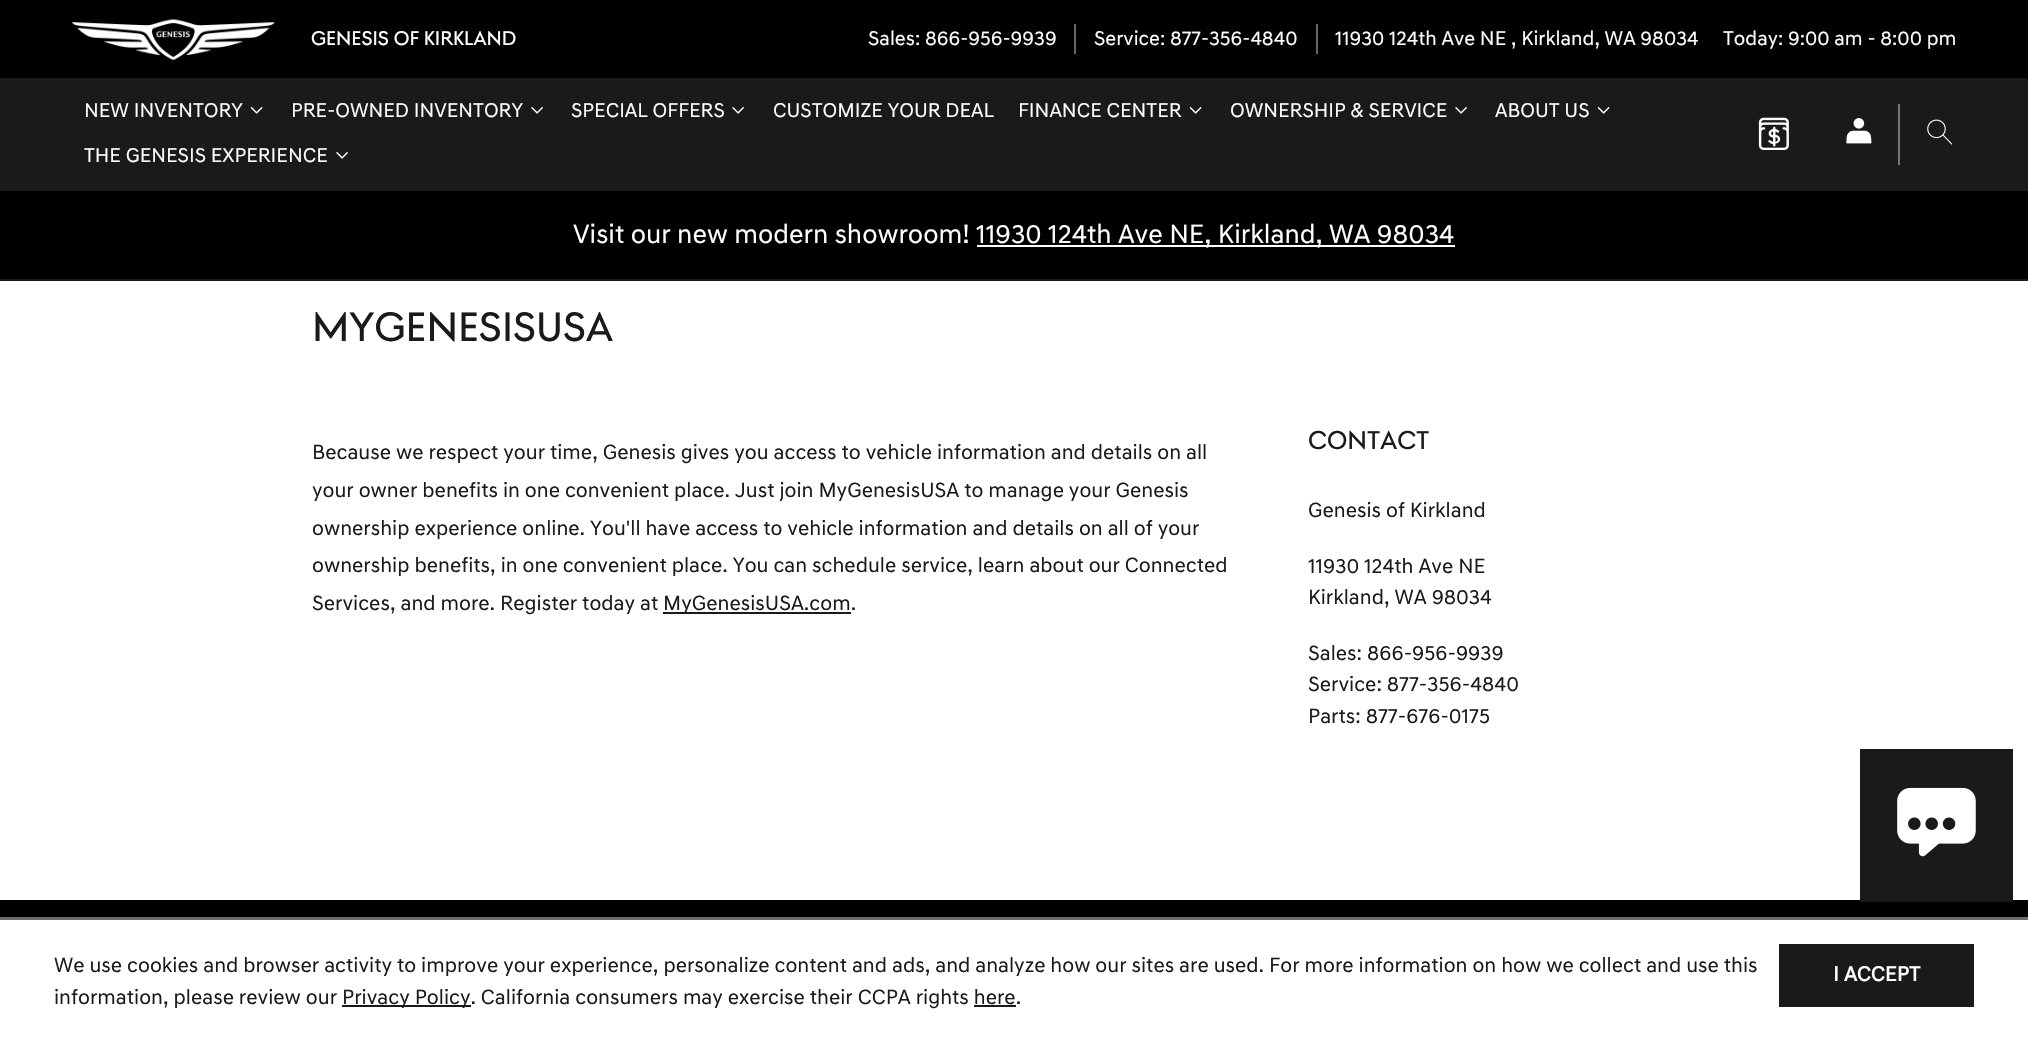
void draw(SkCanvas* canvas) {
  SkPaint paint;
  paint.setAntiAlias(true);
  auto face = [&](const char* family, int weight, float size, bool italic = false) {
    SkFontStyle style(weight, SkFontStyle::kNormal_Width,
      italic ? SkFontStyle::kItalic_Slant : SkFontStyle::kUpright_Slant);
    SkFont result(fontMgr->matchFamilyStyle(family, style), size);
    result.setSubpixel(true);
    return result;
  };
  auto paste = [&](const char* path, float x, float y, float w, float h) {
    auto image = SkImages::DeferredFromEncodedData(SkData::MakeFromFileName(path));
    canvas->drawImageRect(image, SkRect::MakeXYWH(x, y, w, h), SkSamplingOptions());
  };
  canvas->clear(0xffffffff);
  paint.setColor(0xff1a1a1a);
  canvas->drawRect(SkRect::MakeXYWH(0, 78, 2028, 203), paint);
  paint.setColor(0xff000000);
  canvas->drawRect(SkRect::MakeXYWH(0, 0, 2028, 78), paint);
  paste("img/1.png", 72, 19, 203, 41);
  paint.setColor(0xff666666);
  canvas->drawRect(SkRect::MakeXYWH(1074, 24, 2, 30), paint);
  canvas->drawRect(SkRect::MakeXYWH(1316, 24, 2, 30), paint);
  paste("img/2.png", 250, 106, 13, 8);
  paste("img/3.png", 531, 106, 12, 8);
  paste("img/3.png", 732, 106, 12, 8);
  paste("img/2.png", 1189, 106, 13, 8);
  paste("img/3.png", 1455, 106, 12, 8);
  paste("img/2.png", 1597, 106, 13, 8);
  paste("img/3.png", 336, 151, 12, 8);
  paste("img/4.png", 1758, 117, 31, 33);
  paste("img/5.png", 1846, 118, 26, 26);
  paint.setColor(0xff767676);
  canvas->drawRect(SkRect::MakeXYWH(1898, 104, 2, 61), paint);
  paste("img/6.png", 1927, 119, 26, 26);
  {
    const struct { float x, y, w, h; SkColor color; } items[] = {
      {0, 191, 2028, 88, 0xff000000},
      {977, 245, 478, 2, 0xffffffff},
      {663, 612, 188, 2, 0xff1a1a1a},
      {0, 900, 2028, 17, 0xff000000},
      {1860, 749, 153, 153, 0xff1a1a1a},
    };
    for (auto [x, y, w, h, color] : items) {
      paint.setColor(color);
      canvas->drawRect(SkRect::MakeXYWH(x, y, w, h), paint);
    }
  }
  paste("img/7.png", 1897, 787, 79, 70);
  {
    const struct { float x, y, w, h; SkColor color; } items[] = {
      {0, 917, 2028, 3, 0xff6e6e6e},
      {342, 1005, 129, 2, 0xff1a1a1a},
      {974, 1005, 42, 2, 0xff1a1a1a},
      {1779, 944, 195, 63, 0xff1a1a1a},
    };
    for (auto [x, y, w, h, color] : items) {
      paint.setColor(color);
      canvas->drawRect(SkRect::MakeXYWH(x, y, w, h), paint);
    }
  }
  auto f0 = face("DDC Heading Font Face", 400, 20.25f);
  paint.setColor(0xffffffff);
  canvas->drawString("GENESIS OF KIRKLAND", 311, 45, f0, paint);
  auto f1 = face("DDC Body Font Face", 400, 20.25f);
  {
    const struct { const char* s; float x, y; } items[] = {
      {"Sales: 866-956-9939", 868, 45},
      {"Service: 877-356-4840", 1094, 45},
      {"11930 124th Ave NE , Kirkland, WA 98034", 1335, 45},
      {"Today: 9:00 am - 8:00 pm", 1723, 45},
      {"NEW INVENTORY", 84, 117},
      {"PRE-OWNED INVENTORY", 291, 117},
      {"SPECIAL OFFERS", 571, 117},
      {"CUSTOMIZE YOUR DEAL", 773, 117},
      {"FINANCE CENTER", 1018, 117},
      {"OWNERSHIP & SERVICE", 1230, 117},
      {"ABOUT US", 1495, 117},
      {"THE GENESIS EXPERIENCE", 84, 162},
    };
    for (auto [s, x, y] : items) {
      canvas->drawString(s, x, y, f1, paint);
    }
  }
  auto f2 = face("DDC Body Font Face", 400, 27);
  canvas->drawString("Visit our new modern showroom!", 573, 243, f2, paint);
  canvas->drawString("11930 124th Ave NE, Kirkland, WA 98034", 976, 243, f2, paint);
  auto f3 = face("DDC Heading Font Face", 400, 42);
  paint.setColor(0xff1a1a1a);
  canvas->drawString("MYGENESISUSA", 312, 341, f3, paint);
  auto f4 = face("DDC Body Font Face", 400, 21);
  {
    const struct { const char* s; float x, y; } items[] = {
      {"Because we respect your time, Genesis gives you access to vehicle information and details on all", 312, 459},
      {"your owner benefits in one convenient place. Just join MyGenesisUSA to manage your Genesis", 312, 497},
      {"ownership experience online. You'll have access to vehicle information and details on all of your", 312, 535},
      {"ownership benefits, in one convenient place. You can schedule service, learn about our Connected", 312, 572},
      {"Services, and more. Register today at", 312, 610},
      {"MyGenesisUSA.com.", 663, 610},
    };
    for (auto [s, x, y] : items) {
      canvas->drawString(s, x, y, f4, paint);
    }
  }
  auto f5 = face("DDC Heading Font Face", 400, 26.25f);
  canvas->drawString("CONTACT", 1308, 449, f5, paint);
  {
    const struct { const char* s; float x, y; } items[] = {
      {"Genesis of Kirkland", 1308, 517},
      {"11930 124th Ave NE", 1308, 573},
      {"Kirkland, WA 98034", 1308, 604},
      {"Sales: 866-956-9939", 1308, 660},
      {"Service: 877-356-4840", 1308, 691},
      {"Parts: 877-676-0175", 1308, 723},
      {"We use cookies and browser activity to improve your experience, personalize content and ads, and analyze how our sites are used. For more information on how we collect and use this", 54, 972},
      {"information, please review our", 54, 1004},
      {"Privacy Policy. California consumers may exercise their CCPA rights here.", 342, 1004},
    };
    for (auto [s, x, y] : items) {
      canvas->drawString(s, x, y, f4, paint);
    }
  }
  auto f6 = face("DDC Body Font Face", 700, 21);
  paint.setColor(0xffffffff);
  canvas->drawString("I ACCEPT", 1833, 981, f6, paint);
}
